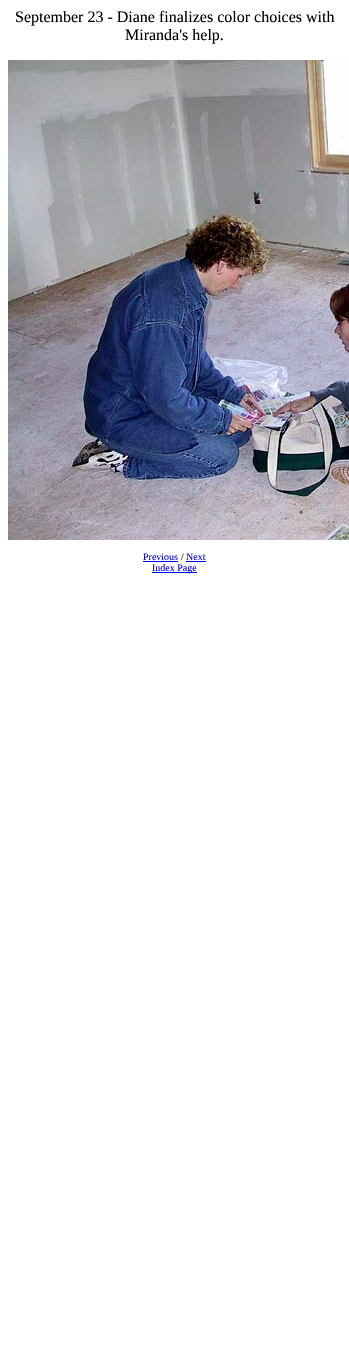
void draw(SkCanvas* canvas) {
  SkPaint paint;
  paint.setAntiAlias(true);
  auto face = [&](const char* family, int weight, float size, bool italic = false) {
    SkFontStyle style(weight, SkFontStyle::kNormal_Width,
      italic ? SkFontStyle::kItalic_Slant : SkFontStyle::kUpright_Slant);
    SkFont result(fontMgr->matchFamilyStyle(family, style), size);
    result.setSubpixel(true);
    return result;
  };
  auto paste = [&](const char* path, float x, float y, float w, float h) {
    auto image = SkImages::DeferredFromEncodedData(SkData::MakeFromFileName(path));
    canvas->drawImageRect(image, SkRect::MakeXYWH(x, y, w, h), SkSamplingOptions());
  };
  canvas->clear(0xffffffff);
  paste("img/1.png", 8, 60, 341, 480);
  {
    const struct { float x, y, w, h; SkColor color; } items[] = {
      {143, 561, 35, 1, 0xff0000ee},
      {186, 561, 20, 1, 0xff0000ee},
      {152, 572, 45, 1, 0xff0000ee},
    };
    for (auto [x, y, w, h, color] : items) {
      paint.setColor(color);
      canvas->drawRect(SkRect::MakeXYWH(x, y, w, h), paint);
    }
  }
  auto f0 = face("Liberation Serif", 400, 16);
  paint.setColor(0xff000000);
  canvas->drawString("September 23 - Diane finalizes color choices with", 15, 22, f0, paint);
  canvas->drawString("Miranda's help.", 125, 40, f0, paint);
  auto f1 = face("Liberation Serif", 400, 10);
  paint.setColor(0xff0000ee);
  canvas->drawString("Previous", 143, 560, f1, paint);
  paint.setColor(0xff000000);
  canvas->drawString("/", 181, 560, f1, paint);
  paint.setColor(0xff0000ee);
  canvas->drawString("Next", 186, 560, f1, paint);
  canvas->drawString("Index Page", 152, 571, f1, paint);
}
